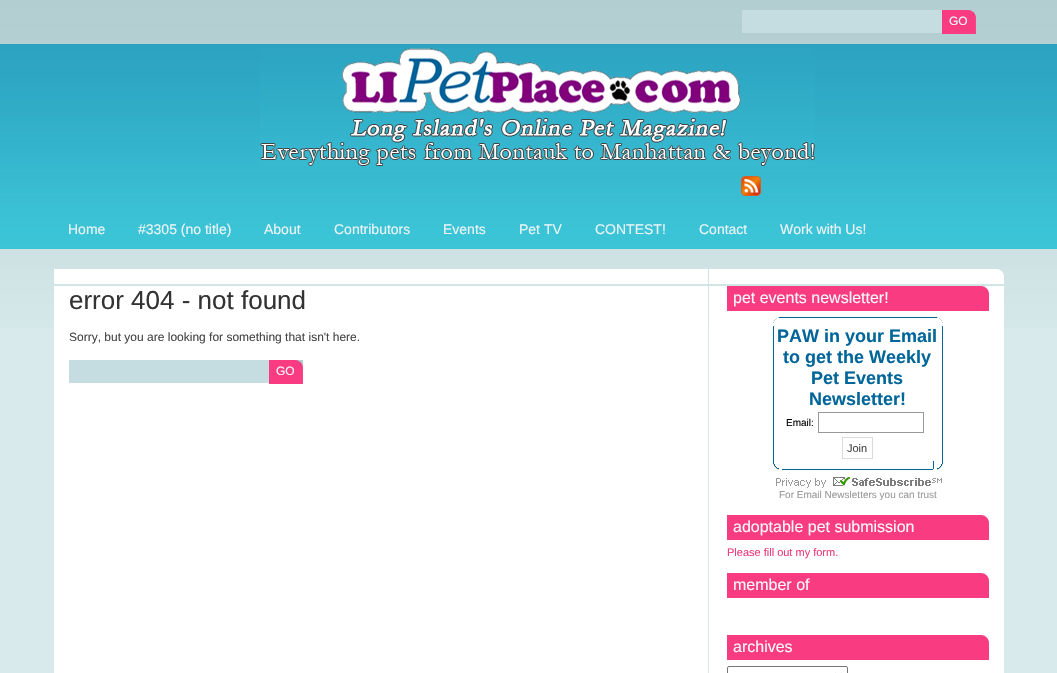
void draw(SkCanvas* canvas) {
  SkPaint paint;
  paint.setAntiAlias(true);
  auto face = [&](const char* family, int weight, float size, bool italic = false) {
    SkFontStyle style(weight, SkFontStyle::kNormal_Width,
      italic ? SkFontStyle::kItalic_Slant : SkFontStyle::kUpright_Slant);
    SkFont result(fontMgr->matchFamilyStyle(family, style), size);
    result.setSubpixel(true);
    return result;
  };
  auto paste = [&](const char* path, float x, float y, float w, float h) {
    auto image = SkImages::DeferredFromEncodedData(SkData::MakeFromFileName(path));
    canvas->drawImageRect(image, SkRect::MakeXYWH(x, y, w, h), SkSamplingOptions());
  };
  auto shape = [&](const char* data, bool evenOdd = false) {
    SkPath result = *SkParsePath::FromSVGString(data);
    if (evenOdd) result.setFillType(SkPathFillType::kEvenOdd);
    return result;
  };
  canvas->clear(0xffd9eaec);
  paste("img/1.png", 0, 0, 1057, 328);
  paint.setColor(0xffc5dde1);
  canvas->drawRect(SkRect::MakeXYWH(742, 10, 200, 23), paint);
  paste("img/2.png", 942, 10, 34, 24);
  paste("img/3.png", 0, 44, 1057, 205);
  paste("img/4.png", 741, 176, 20, 20);
  paste("img/5.png", 260, 48, 555, 118);
  paste("img/6.png", 54, 269, 950, 15);
  paste("img/7.png", 54, 286, 950, 387);
  canvas->drawRect(SkRect::MakeXYWH(69, 360, 200, 23), paint);
  paste("img/2.png", 269, 360, 34, 24);
  paint.setColor(0xfff93b81);
  canvas->drawRect(SkRect::MakeXYWH(727, 286, 262, 25), paint);
  paste("img/8.png", 977, 286, 12, 8);
  paint.setColor(0xff006699);
  canvas->drawRect(SkRect::MakeXYWH(773, 317, 170, 1), paint);
  paste("img/9.png", 773, 317, 6, 6);
  paste("img/10.png", 937, 317, 6, 6);
  canvas->drawRect(SkRect::MakeXYWH(942, 326, 1, 135), paint);
  canvas->drawRect(SkRect::MakeXYWH(773, 326, 1, 135), paint);
  paint.setStroke(true);
  paint.setStrokeWidth(1);
  paint.setColor(0xff999999);
  canvas->drawRect(SkRect::MakeXYWH(818.5f, 412.5f, 105, 20), paint);
  paint.setColor(0xffdbdbdb);
  canvas->drawRect(SkRect::MakeXYWH(842.5f, 437.5f, 30, 21), paint);
  paint.setStroke(false);
  paint.setColor(0xff006699);
  canvas->drawRect(SkRect::MakeXYWH(773, 461, 170, 8), paint);
  paste("img/11.png", 773, 461, 9, 9);
  paint.setColor(0xffffffff);
  canvas->drawRect(SkRect::MakeXYWH(782, 461, 151, 8), paint);
  paste("img/12.png", 934, 461, 9, 9);
  paint.setColor(0xff006699);
  canvas->drawRect(SkRect::MakeXYWH(782, 469, 151, 1), paint);
  paste("img/13.png", 776, 477, 166, 11);
  paint.setColor(0xfff93b81);
  canvas->drawRect(SkRect::MakeXYWH(727, 515, 262, 25), paint);
  paste("img/8.png", 977, 515, 12, 8);
  canvas->drawRect(SkRect::MakeXYWH(727, 573, 262, 25), paint);
  paste("img/8.png", 977, 573, 12, 8);
  canvas->drawRect(SkRect::MakeXYWH(727, 635, 262, 25), paint);
  paste("img/8.png", 977, 635, 12, 8);
  paint.setStroke(true);
  paint.setColor(0xff767676);
  canvas->drawRoundRect(SkRect::MakeXYWH(727.5f, 666.5f, 120, 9), 1.5f, 1.5f, paint);
  paint.setStrokeWidth(2);
  paint.setColor(0xff000000);
  canvas->drawPath(shape("M834.5 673.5L838.5 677.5L842.5 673.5"), paint);
  auto f0 = face("Liberation Sans", 400, 12);
  paint.setStroke(false);
  paint.setColor(0xfff8f8f8);
  canvas->drawString("GO", 949, 25, f0, paint);
  auto f1 = face("Liberation Sans", 400, 14);
  paint.setColor(0xffecf5f6);
  {
    const struct { const char* s; float x, y; } items[] = {
      {"Home", 68, 234},
      {"#3305 (no title)", 138, 234},
      {"About", 264, 234},
      {"Contributors", 334, 234},
      {"Events", 443, 234},
      {"Pet TV", 519, 234},
      {"CONTEST!", 595, 234},
      {"Contact", 699, 234},
      {"Work with Us!", 780, 234},
    };
    for (auto [s, x, y] : items) {
      canvas->drawString(s, x, y, f1, paint);
    }
  }
  auto f2 = face("Liberation Sans", 400, 26);
  paint.setColor(0xff333333);
  canvas->drawString("error 404 - not found", 69, 309, f2, paint);
  paint.setColor(0xff444444);
  canvas->drawString("Sorry, but you are looking for something that isn't here.", 69, 341, f0, paint);
  paint.setColor(0xfff8f8f8);
  canvas->drawString("GO", 276, 375, f0, paint);
  auto f3 = face("Liberation Sans", 400, 16);
  canvas->drawString("pet events newsletter!", 733, 303, f3, paint);
  auto f4 = face("Liberation Sans", 700, 18);
  paint.setColor(0xff006699);
  {
    const struct { const char* s; float x, y; } items[] = {
      {"PAW in your Email", 777, 342},
      {"to get the Weekly", 783, 363},
      {"Pet Events", 811, 384},
      {"Newsletter!", 809, 405},
    };
    for (auto [s, x, y] : items) {
      canvas->drawString(s, x, y, f4, paint);
    }
  }
  auto f5 = face("Liberation Sans", 400, 10);
  paint.setColor(0xff000000);
  canvas->drawString("Email:", 786, 426, f5, paint);
  auto f6 = face("Liberation Sans", 400, 11);
  paint.setColor(0xff444444);
  canvas->drawString("Join", 847, 452, f6, paint);
  paint.setColor(0xff999999);
  canvas->drawString("For Email Newsletters you can trust", 779, 498, f5, paint);
  paint.setColor(0xfff8f8f8);
  canvas->drawString("adoptable pet submission", 733, 532, f3, paint);
  paint.setColor(0xffed397b);
  canvas->drawString("Please fill out my form.", 727, 556, f6, paint);
  paint.setColor(0xfff8f8f8);
  canvas->drawString("member of", 733, 590, f3, paint);
  canvas->drawString("archives", 733, 652, f3, paint);
}
